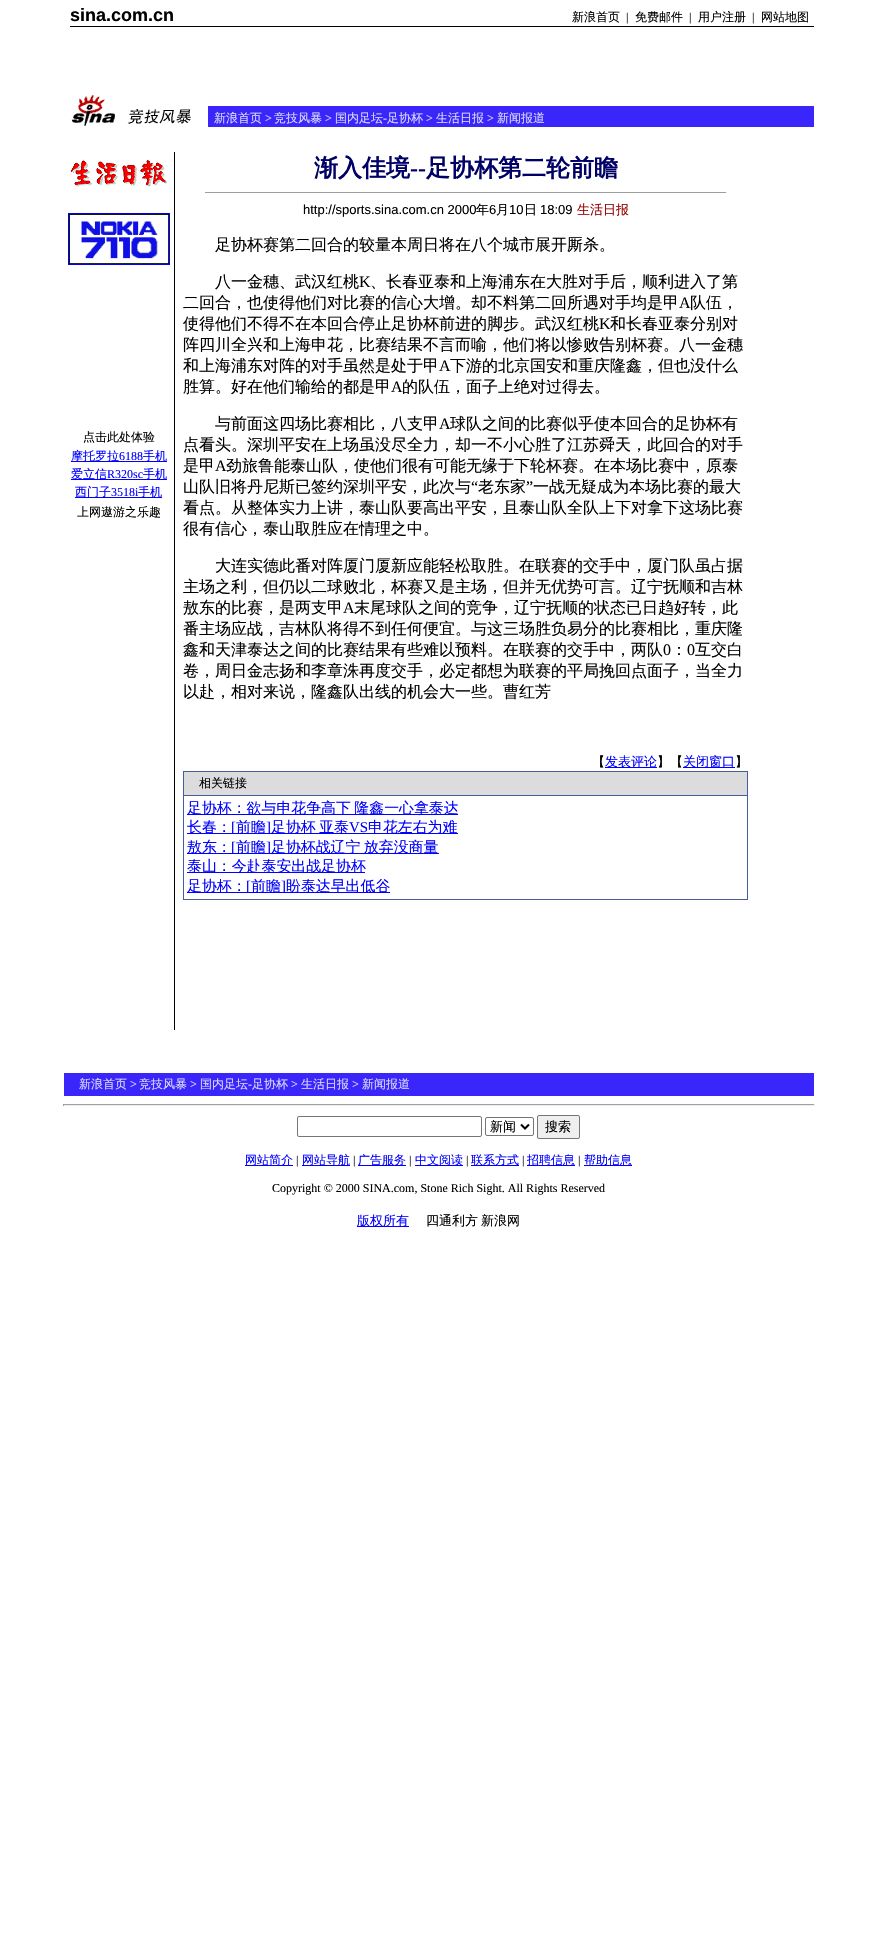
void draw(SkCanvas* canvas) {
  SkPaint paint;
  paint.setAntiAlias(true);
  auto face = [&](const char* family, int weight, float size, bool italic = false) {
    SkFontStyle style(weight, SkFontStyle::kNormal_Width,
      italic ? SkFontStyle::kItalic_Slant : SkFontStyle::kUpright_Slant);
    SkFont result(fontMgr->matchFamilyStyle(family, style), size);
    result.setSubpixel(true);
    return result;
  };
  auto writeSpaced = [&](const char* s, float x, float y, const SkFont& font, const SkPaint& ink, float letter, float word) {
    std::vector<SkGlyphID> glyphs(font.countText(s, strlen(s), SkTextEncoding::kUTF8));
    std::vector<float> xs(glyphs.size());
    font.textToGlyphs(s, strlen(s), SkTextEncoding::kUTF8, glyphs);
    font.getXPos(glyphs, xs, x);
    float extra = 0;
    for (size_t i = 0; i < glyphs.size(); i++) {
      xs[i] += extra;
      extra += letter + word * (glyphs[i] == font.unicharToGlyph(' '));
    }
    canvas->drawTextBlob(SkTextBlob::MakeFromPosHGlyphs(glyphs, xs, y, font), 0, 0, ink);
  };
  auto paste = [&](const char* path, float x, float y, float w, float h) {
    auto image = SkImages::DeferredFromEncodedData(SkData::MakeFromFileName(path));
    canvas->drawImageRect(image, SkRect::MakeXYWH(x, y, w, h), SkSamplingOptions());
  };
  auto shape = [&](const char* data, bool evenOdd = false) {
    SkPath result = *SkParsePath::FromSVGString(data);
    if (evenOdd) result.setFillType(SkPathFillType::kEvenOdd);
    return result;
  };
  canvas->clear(0xffffffff);
  paint.setColor(0xff000000);
  canvas->drawRect(SkRect::MakeXYWH(70, 26, 744, 1), paint);
  paste("img/1.png", 71, 95, 120, 32);
  paint.setColor(0xff3a26fa);
  canvas->drawRect(SkRect::MakeXYWH(208, 106, 606, 21), paint);
  paste("img/2.png", 70, 158, 98, 29);
  paint.setStroke(true);
  paint.setStrokeWidth(1);
  paint.setColor(0xff0000ff);
  canvas->drawRect(SkRect::MakeXYWH(68.5f, 213.5f, 101, 51), paint);
  paste("img/3.png", 69, 214, 100, 50);
  paint.setStroke(false);
  {
    const struct { float x, y, w, h; SkColor color; } items[] = {
      {71, 461, 96, 1, 0xff0000ff},
      {71, 479, 96, 1, 0xff0000ff},
      {75, 497, 87, 1, 0xff0000ff},
      {174, 152, 1, 878, 0xff000000},
      {205, 192, 522, 1, 0xff9f9f9f},
      {726, 192, 1, 1, 0xffeeeeee},
      {605, 767, 52, 1, 0xff0000ff},
      {683, 767, 52, 1, 0xff0000ff},
      {183, 771, 565, 129, 0xff455ca2},
      {184, 772, 563, 23, 0xffdcdcdc},
      {184, 796, 563, 103, 0xffffffff},
      {187, 814, 271, 1, 0xff0000ff},
      {187, 833, 271, 1, 0xff0000ff},
      {187, 853, 252, 1, 0xff0000ff},
      {187, 872, 178, 1, 0xff0000ff},
      {187, 892, 203, 1, 0xff0000ff},
      {64, 1073, 750, 23, 0xff3a26fa},
      {63, 1104, 752, 1, 0xff9f9f9f},
      {814, 1104, 1, 2, 0xffeeeeee},
      {63, 1105, 752, 1, 0xffeeeeee},
      {63, 1104, 1, 2, 0xff9f9f9f},
    };
    for (auto [x, y, w, h, color] : items) {
      paint.setColor(color);
      canvas->drawRect(SkRect::MakeXYWH(x, y, w, h), paint);
    }
  }
  paint.setStroke(true);
  paint.setColor(0xff767676);
  canvas->drawRoundRect(SkRect::MakeXYWH(297.5f, 1116.5f, 184, 20), 1.5f, 1.5f, paint);
  canvas->drawRoundRect(SkRect::MakeXYWH(485.5f, 1117.5f, 48, 18), 1.5f, 1.5f, paint);
  paint.setStrokeWidth(2);
  paint.setColor(0xff000000);
  canvas->drawPath(shape("M521 1124.5L525 1128.5L529 1124.5"), paint);
  paint.setStroke(false);
  paint.setColor(0xffefefef);
  canvas->drawRoundRect(SkRect::MakeXYWH(537.5f, 1115.5f, 42, 23), 1.5f, 1.5f, paint);
  paint.setStroke(true);
  paint.setStrokeWidth(1);
  paint.setColor(0xff767676);
  canvas->drawRoundRect(SkRect::MakeXYWH(537.5f, 1115.5f, 42, 23), 1.5f, 1.5f, paint);
  paint.setStroke(false);
  {
    const struct { float x, y, w, h; SkColor color; } items[] = {
      {245, 1165, 48, 1, 0xff0000ff},
      {302, 1165, 48, 1, 0xff0000ff},
      {358, 1165, 48, 1, 0xff0000ff},
      {415, 1165, 48, 1, 0xff0000ff},
      {471, 1165, 48, 1, 0xff0000ff},
      {527, 1165, 48, 1, 0xff0000ff},
      {584, 1165, 48, 1, 0xff0000ff},
      {357, 1226, 52, 1, 0xff0000ff},
    };
    for (auto [x, y, w, h, color] : items) {
      paint.setColor(color);
      canvas->drawRect(SkRect::MakeXYWH(x, y, w, h), paint);
    }
  }
  auto f0 = face("Liberation Sans", 700, 18);
  paint.setColor(0xff000000);
  canvas->drawString("sina.com.cn", 70, 21, f0, paint);
  auto f1 = face("WenQuanYi Zen Hei", 500, 12);
  canvas->drawString("新浪首页", 572, 21, f1, paint);
  auto f2 = face("Liberation Serif", 400, 12);
  canvas->drawString("|", 626, 21, f2, paint);
  canvas->drawString("免费邮件", 635, 21, f1, paint);
  canvas->drawString("|", 689, 21, f2, paint);
  canvas->drawString("用户注册", 698, 21, f1, paint);
  canvas->drawString("|", 752, 21, f2, paint);
  canvas->drawString("网站地图", 761, 21, f1, paint);
  paint.setColor(0xffd8dcfe);
  canvas->drawString("新浪首页", 214, 122, f1, paint);
  canvas->drawString(">", 265, 122, f2, paint);
  canvas->drawString("竞技风暴", 274, 122, f1, paint);
  canvas->drawString(">", 325, 122, f2, paint);
  canvas->drawString("国内足坛", 335, 122, f1, paint);
  canvas->drawString("-", 383, 122, f2, paint);
  canvas->drawString("足协杯", 387, 122, f1, paint);
  canvas->drawString(">", 426, 122, f2, paint);
  canvas->drawString("生活日报", 436, 122, f1, paint);
  canvas->drawString(">", 487, 122, f2, paint);
  canvas->drawString("新闻报道", 497, 122, f1, paint);
  paint.setColor(0xff000000);
  canvas->drawString("点击此处体验", 83, 441, f1, paint);
  paint.setColor(0xff0000ff);
  canvas->drawString("摩托罗拉", 71, 460, f1, paint);
  canvas->drawString("6188", 119, 460, f2, paint);
  canvas->drawString("手机", 143, 460, f1, paint);
  canvas->drawString("爱立信", 71, 478, f1, paint);
  canvas->drawString("R320sc", 107, 478, f2, paint);
  canvas->drawString("手机", 143, 478, f1, paint);
  canvas->drawString("西门子", 75, 496, f1, paint);
  canvas->drawString("3518i", 111, 496, f2, paint);
  canvas->drawString("手机", 138, 496, f1, paint);
  paint.setColor(0xff000000);
  canvas->drawString("上网遨游之乐趣", 77, 516, f1, paint);
  auto f3 = face("WenQuanYi Zen Hei", 700, 24);
  paint.setColor(0xff000066);
  canvas->drawString("渐入佳境", 314, 176, f3, paint);
  auto f4 = face("Liberation Serif", 700, 24);
  canvas->drawString("--", 410, 176, f4, paint);
  canvas->drawString("足协杯第二轮前瞻", 426, 176, f3, paint);
  auto f5 = face("Liberation Sans", 400, 13);
  paint.setColor(0xff000000);
  canvas->drawString("http://sports.sina.com.cn 2000", 303, 214, f5, paint);
  auto f6 = face("WenQuanYi Zen Hei", 500, 13);
  canvas->drawString("年", 476, 214, f6, paint);
  canvas->drawString("6", 489, 214, f5, paint);
  canvas->drawString("月", 496, 214, f6, paint);
  canvas->drawString("10", 509, 214, f5, paint);
  canvas->drawString("日", 524, 214, f6, paint);
  canvas->drawString("18:09", 540, 214, f5, paint);
  paint.setColor(0xff990000);
  canvas->drawString("生活日报", 577, 214, f6, paint);
  auto f7 = face("WenQuanYi Zen Hei", 500, 16);
  paint.setColor(0xff000000);
  canvas->drawString("足协杯赛第二回合的较量本周日将在八个城市展开厮杀。", 215, 250, f7, paint);
  canvas->drawString("八一金穗、武汉红桃", 215, 287, f7, paint);
  auto f8 = face("Liberation Serif", 400, 16);
  canvas->drawString("K", 359, 287, f8, paint);
  canvas->drawString("、长春亚泰和上海浦东在大胜对手后，顺利进入了第", 370, 287, f7, paint);
  canvas->drawString("二回合，也使得他们对比赛的信心大增。却不料第二回所遇对手均是甲", 183, 308, f7, paint);
  canvas->drawString("A", 679, 308, f8, paint);
  canvas->drawString("队伍，", 690, 308, f7, paint);
  canvas->drawString("使得他们不得不在本回合停止足协杯前进的脚步。武汉红桃", 183, 329, f7, paint);
  canvas->drawString("K", 599, 329, f8, paint);
  {
    const struct { const char* s; float x, y; } items[] = {
      {"和长春亚泰分别对", 610, 329},
      {"阵四川全兴和上海申花，比赛结果不言而喻，他们将以惨败告别杯赛。八一金穗", 183, 350},
      {"和上海浦东对阵的对手虽然是处于甲", 183, 371},
    };
    for (auto [s, x, y] : items) {
      canvas->drawString(s, x, y, f7, paint);
    }
  }
  canvas->drawString("A", 439, 371, f8, paint);
  canvas->drawString("下游的北京国安和重庆隆鑫，但也没什么", 450, 371, f7, paint);
  canvas->drawString("胜算。好在他们输给的都是甲", 183, 392, f7, paint);
  canvas->drawString("A", 391, 392, f8, paint);
  canvas->drawString("的队伍，面子上绝对过得去。", 402, 392, f7, paint);
  canvas->drawString("与前面这四场比赛相比，八支甲", 215, 429, f7, paint);
  canvas->drawString("A", 439, 429, f8, paint);
  {
    const struct { const char* s; float x, y; } items[] = {
      {"球队之间的比赛似乎使本回合的足协杯有", 450, 429},
      {"点看头。深圳平安在上场虽没尽全力，却一不小心胜了江苏舜天，此回合的对手", 183, 450},
      {"是甲", 183, 471},
    };
    for (auto [s, x, y] : items) {
      canvas->drawString(s, x, y, f7, paint);
    }
  }
  canvas->drawString("A", 215, 471, f8, paint);
  canvas->drawString("劲旅鲁能泰山队，使他们很有可能无缘于下轮杯赛。在本场比赛中，原泰", 226, 471, f7, paint);
  canvas->drawString("山队旧将丹尼斯已签约深圳平安，此次与", 183, 492, f7, paint);
  canvas->drawString("“", 471, 492, f8, paint);
  canvas->drawString("老东家", 478, 492, f7, paint);
  canvas->drawString("”", 526, 492, f8, paint);
  {
    const struct { const char* s; float x, y; } items[] = {
      {"一战无疑成为本场比赛的最大", 533, 492},
      {"看点。从整体实力上讲，泰山队要高出平安，且泰山队全队上下对拿下这场比赛", 183, 513},
      {"很有信心，泰山取胜应在情理之中。", 183, 534},
      {"大连实德此番对阵厦门厦新应能轻松取胜。在联赛的交手中，厦门队虽占据", 215, 571},
      {"主场之利，但仍以二球败北，杯赛又是主场，但并无优势可言。辽宁抚顺和吉林", 183, 592},
      {"敖东的比赛，是两支甲", 183, 613},
    };
    for (auto [s, x, y] : items) {
      canvas->drawString(s, x, y, f7, paint);
    }
  }
  canvas->drawString("A", 343, 613, f8, paint);
  {
    const struct { const char* s; float x, y; } items[] = {
      {"末尾球队之间的竞争，辽宁抚顺的状态已日趋好转，此", 354, 613},
      {"番主场应战，吉林队将得不到任何便宜。与这三场胜负易分的比赛相比，重庆隆", 183, 634},
      {"鑫和天津泰达之间的比赛结果有些难以预料。在联赛的交手中，两队", 183, 655},
    };
    for (auto [s, x, y] : items) {
      canvas->drawString(s, x, y, f7, paint);
    }
  }
  canvas->drawString("0", 663, 655, f8, paint);
  canvas->drawString("：", 671, 655, f7, paint);
  canvas->drawString("0", 687, 655, f8, paint);
  {
    const struct { const char* s; float x, y; } items[] = {
      {"互交白", 695, 655},
      {"卷，周日金志扬和李章洙再度交手，必定都想为联赛的平局挽回点面子，当全力", 183, 676},
      {"以赴，相对来说，隆鑫队出线的机会大一些。曹红芳", 183, 697},
    };
    for (auto [s, x, y] : items) {
      canvas->drawString(s, x, y, f7, paint);
    }
  }
  canvas->drawString("【", 592, 766, f6, paint);
  paint.setColor(0xff0000ff);
  canvas->drawString("发表评论", 605, 766, f6, paint);
  paint.setColor(0xff000000);
  canvas->drawString("】【", 657, 766, f6, paint);
  paint.setColor(0xff0000ff);
  canvas->drawString("关闭窗口", 683, 766, f6, paint);
  paint.setColor(0xff000000);
  canvas->drawString("】", 735, 766, f6, paint);
  canvas->drawString("相关链接", 199, 787, f1, paint);
  auto f9 = face("WenQuanYi Zen Hei", 500, 14.9f);
  paint.setColor(0xff0000ff);
  writeSpaced("足协杯：欲与申花争高下 隆鑫一心拿泰达", 187, 813, f9, paint, 0, -1);
  canvas->drawString("长春：", 187, 832, f9, paint);
  auto f10 = face("Liberation Serif", 400, 14.9f);
  canvas->drawString("[", 231, 832, f10, paint);
  canvas->drawString("前瞻", 236, 832, f9, paint);
  canvas->drawString("]", 266, 832, f10, paint);
  writeSpaced("足协杯 亚泰", 271, 832, f9, paint, 0, -1);
  canvas->drawString("VS", 349, 832, f10, paint);
  canvas->drawString("申花左右为难", 368, 832, f9, paint);
  canvas->drawString("敖东：", 187, 852, f9, paint);
  canvas->drawString("[", 231, 852, f10, paint);
  canvas->drawString("前瞻", 236, 852, f9, paint);
  canvas->drawString("]", 266, 852, f10, paint);
  writeSpaced("足协杯战辽宁 放弃没商量", 271, 852, f9, paint, 0, -1);
  canvas->drawString("泰山：今赴泰安出战足协杯", 187, 871, f9, paint);
  canvas->drawString("足协杯：", 187, 891, f9, paint);
  canvas->drawString("[", 246, 891, f10, paint);
  canvas->drawString("前瞻", 251, 891, f9, paint);
  canvas->drawString("]", 281, 891, f10, paint);
  canvas->drawString("盼泰达早出低谷", 286, 891, f9, paint);
  paint.setColor(0xffd8dcfe);
  canvas->drawString("新浪首页", 79, 1088, f1, paint);
  canvas->drawString(">", 130, 1088, f2, paint);
  canvas->drawString("竞技风暴", 139, 1088, f1, paint);
  canvas->drawString(">", 190, 1088, f2, paint);
  canvas->drawString("国内足坛", 200, 1088, f1, paint);
  canvas->drawString("-", 248, 1088, f2, paint);
  canvas->drawString("足协杯", 252, 1088, f1, paint);
  canvas->drawString(">", 291, 1088, f2, paint);
  canvas->drawString("生活日报", 301, 1088, f1, paint);
  canvas->drawString(">", 352, 1088, f2, paint);
  canvas->drawString("新闻报道", 362, 1088, f1, paint);
  paint.setColor(0xff000000);
  canvas->drawString("新闻", 490, 1131, f6, paint);
  canvas->drawString("搜索", 545, 1131, f6, paint);
  paint.setColor(0xff0000ff);
  canvas->drawString("网站简介", 245, 1164, f1, paint);
  paint.setColor(0xff000000);
  canvas->drawString("|", 296, 1164, f2, paint);
  paint.setColor(0xff0000ff);
  canvas->drawString("网站导航", 302, 1164, f1, paint);
  paint.setColor(0xff000000);
  canvas->drawString("|", 353, 1164, f2, paint);
  paint.setColor(0xff0000ff);
  canvas->drawString("广告服务", 358, 1164, f1, paint);
  paint.setColor(0xff000000);
  canvas->drawString("|", 409, 1164, f2, paint);
  paint.setColor(0xff0000ff);
  canvas->drawString("中文阅读", 415, 1164, f1, paint);
  paint.setColor(0xff000000);
  canvas->drawString("|", 466, 1164, f2, paint);
  paint.setColor(0xff0000ff);
  canvas->drawString("联系方式", 471, 1164, f1, paint);
  paint.setColor(0xff000000);
  canvas->drawString("|", 522, 1164, f2, paint);
  paint.setColor(0xff0000ff);
  canvas->drawString("招聘信息", 527, 1164, f1, paint);
  paint.setColor(0xff000000);
  canvas->drawString("|", 578, 1164, f2, paint);
  paint.setColor(0xff0000ff);
  canvas->drawString("帮助信息", 584, 1164, f1, paint);
  paint.setColor(0xff000000);
  canvas->drawString("Copyright © 2000 SINA.com, Stone Rich Sight. All Rights Reserved", 272, 1192, f2, paint);
  paint.setColor(0xff0000ff);
  canvas->drawString("版权所有", 357, 1225, f6, paint);
  paint.setColor(0xff000000);
  canvas->drawString("四通利方", 426, 1225, f6, paint);
  canvas->drawString("新浪网", 481, 1225, f6, paint);
}
